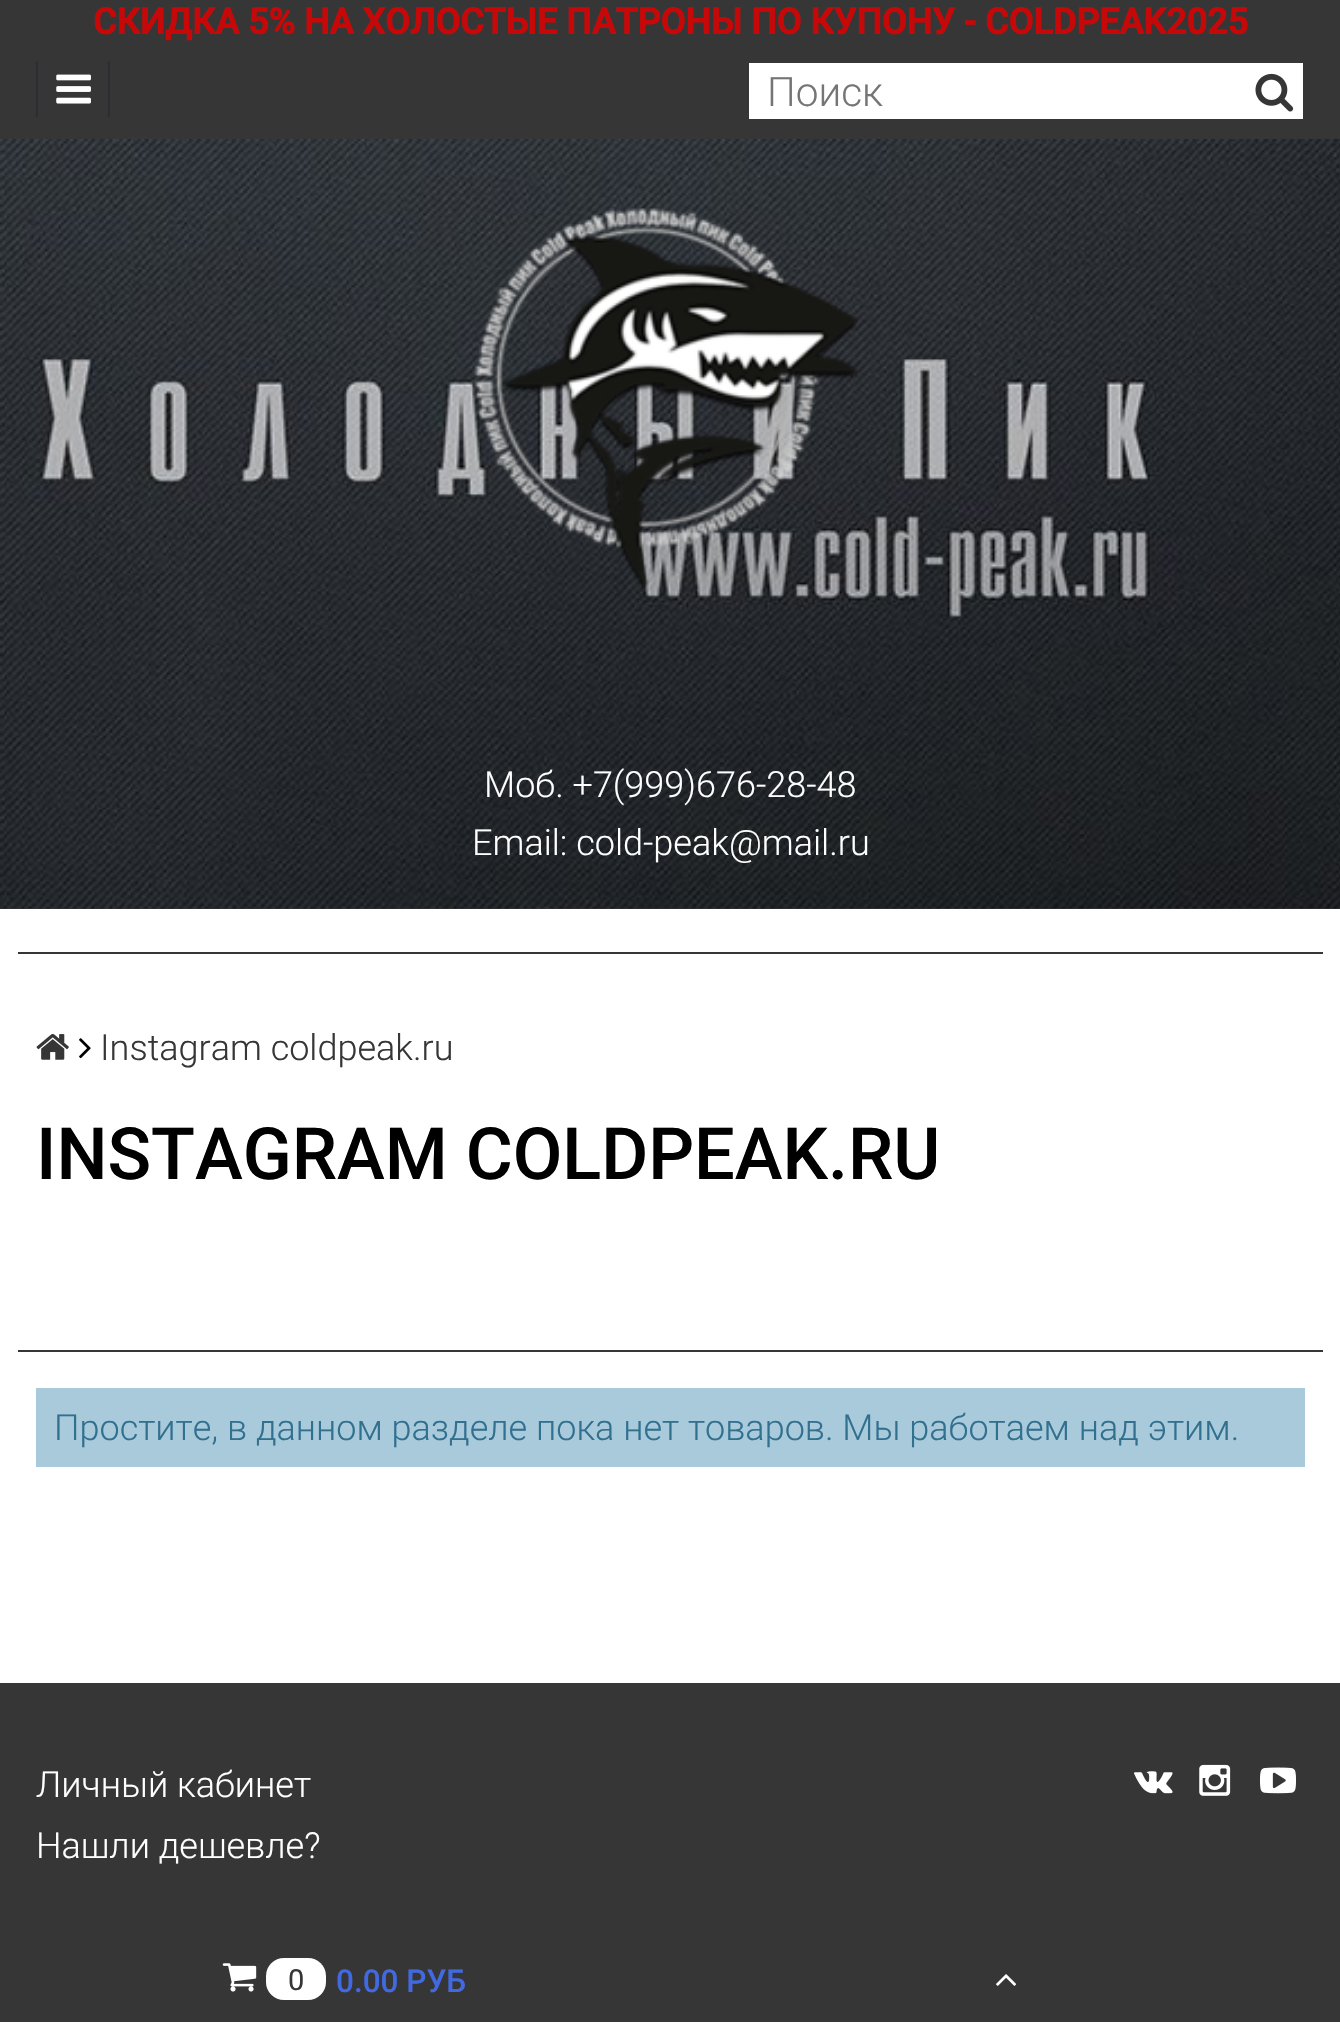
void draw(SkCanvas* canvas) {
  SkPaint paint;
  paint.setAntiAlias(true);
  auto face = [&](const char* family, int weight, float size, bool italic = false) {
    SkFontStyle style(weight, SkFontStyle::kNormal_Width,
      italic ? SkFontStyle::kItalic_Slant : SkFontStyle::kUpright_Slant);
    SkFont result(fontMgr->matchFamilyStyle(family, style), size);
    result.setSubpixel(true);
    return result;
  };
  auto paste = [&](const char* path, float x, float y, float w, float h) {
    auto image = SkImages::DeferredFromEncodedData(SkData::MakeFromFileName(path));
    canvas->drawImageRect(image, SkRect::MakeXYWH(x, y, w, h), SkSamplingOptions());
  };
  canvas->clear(0xff363636);
  {
    const struct { float x, y, w, h; SkColor color; } items[] = {
      {0, 909, 1340, 774, 0xffffffff},
      {108, 61, 2, 56, 0xff2c2d33},
      {36, 61, 2, 56, 0xff2c2d33},
    };
    for (auto [x, y, w, h, color] : items) {
      paint.setColor(color);
      canvas->drawRect(SkRect::MakeXYWH(x, y, w, h), paint);
    }
  }
  paste("img/1.png", 56, 74, 35, 30);
  paint.setColor(0xffffffff);
  canvas->drawRect(SkRect::MakeXYWH(749, 63, 554, 56), paint);
  paste("img/2.png", 1255, 73, 39, 39);
  paste("img/3.png", 0, 139, 1340, 770);
  paste("img/4.png", 474, 208, 384, 381);
  paint.setColor(0xff363636);
  canvas->drawRect(SkRect::MakeXYWH(18, 952, 1305, 2), paint);
  paste("img/5.png", 36, 1034, 33, 26);
  paste("img/6.png", 79, 1038, 12, 21);
  canvas->drawRect(SkRect::MakeXYWH(18, 1350, 1305, 2), paint);
  paint.setColor(0xffa9cadb);
  canvas->drawRect(SkRect::MakeXYWH(36, 1388, 1269, 79), paint);
  paste("img/7.png", 1134, 1771, 39, 23);
  paste("img/8.png", 1199, 1764, 32, 32);
  paste("img/9.png", 1260, 1767, 36, 27);
  paste("img/10.png", 222, 1963, 35, 29);
  paint.setColor(0xffffffff);
  canvas->drawRoundRect(SkRect::MakeXYWH(266, 1958, 60, 42), 18, 18, paint);
  paste("img/11.png", 996, 1974, 21, 12);
  auto f0 = face("Roboto", 700, 36);
  paint.setColor(0xffc70808);
  canvas->drawString("СКИДКА 5% НА ХОЛОСТЫЕ ПАТРОНЫ ПО КУПОНУ - COLDPEAK2025", 93, 34, f0, paint);
  auto f1 = face("Roboto", 300, 40.5f);
  paint.setColor(0xff757575);
  canvas->drawString("Поиск", 767, 106, f1, paint);
  auto f2 = face("Roboto", 300, 36);
  paint.setColor(0xffffffff);
  canvas->drawString("Моб. +7(999)676-28-48", 484, 797, f2, paint);
  canvas->drawString("Email: cold-peak@mail.ru", 472, 855, f2, paint);
  paint.setColor(0xff363636);
  canvas->drawString("Instagram coldpeak.ru", 100, 1060, f2, paint);
  auto f3 = face("Roboto", 500, 72);
  paint.setColor(0xff000000);
  canvas->drawString("INSTAGRAM COLDPEAK.RU", 36, 1179, f3, paint);
  paint.setColor(0xff31708f);
  canvas->drawString("Простите, в данном разделе пока нет товаров. Мы работаем над этим.", 54, 1440, f2, paint);
  paint.setColor(0xffffffff);
  canvas->drawString("Личный кабинет", 36, 1797, f2, paint);
  canvas->drawString("Нашли дешевле?", 36, 1858, f2, paint);
  auto f4 = face("Roboto", 400, 29);
  paint.setColor(0xff363636);
  canvas->drawString("0", 288, 1990, f4, paint);
  auto f5 = face("Roboto", 500, 31.5f);
  paint.setColor(0xff4169e1);
  canvas->drawString("0.00 РУБ", 336, 1992, f5, paint);
}
